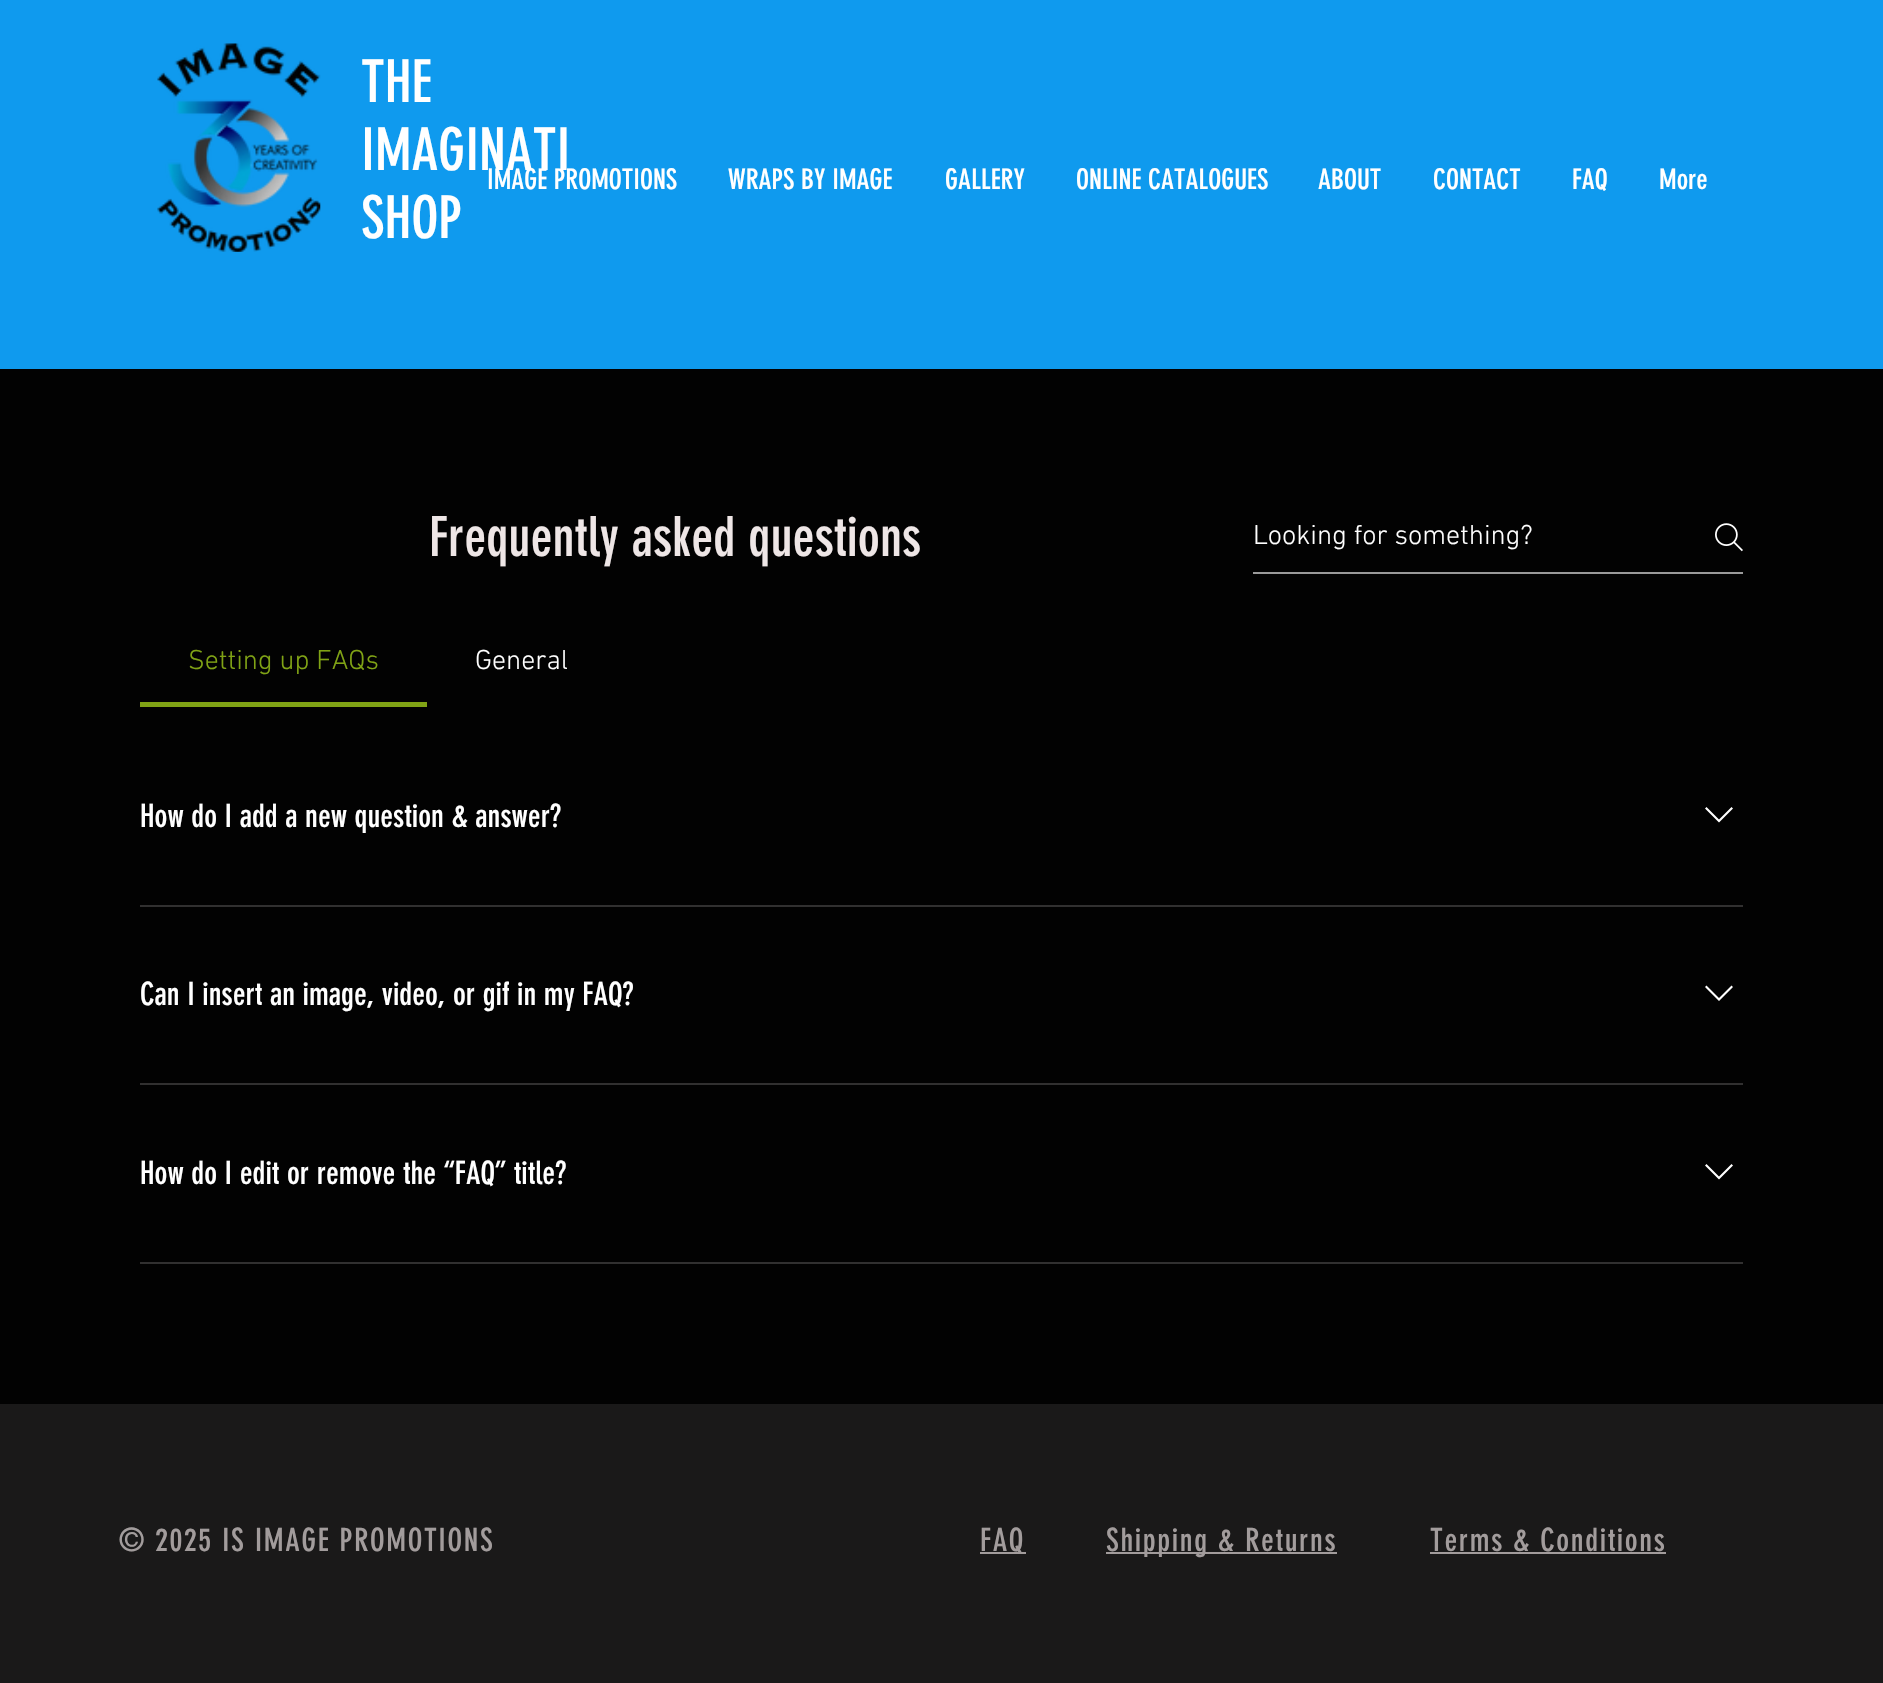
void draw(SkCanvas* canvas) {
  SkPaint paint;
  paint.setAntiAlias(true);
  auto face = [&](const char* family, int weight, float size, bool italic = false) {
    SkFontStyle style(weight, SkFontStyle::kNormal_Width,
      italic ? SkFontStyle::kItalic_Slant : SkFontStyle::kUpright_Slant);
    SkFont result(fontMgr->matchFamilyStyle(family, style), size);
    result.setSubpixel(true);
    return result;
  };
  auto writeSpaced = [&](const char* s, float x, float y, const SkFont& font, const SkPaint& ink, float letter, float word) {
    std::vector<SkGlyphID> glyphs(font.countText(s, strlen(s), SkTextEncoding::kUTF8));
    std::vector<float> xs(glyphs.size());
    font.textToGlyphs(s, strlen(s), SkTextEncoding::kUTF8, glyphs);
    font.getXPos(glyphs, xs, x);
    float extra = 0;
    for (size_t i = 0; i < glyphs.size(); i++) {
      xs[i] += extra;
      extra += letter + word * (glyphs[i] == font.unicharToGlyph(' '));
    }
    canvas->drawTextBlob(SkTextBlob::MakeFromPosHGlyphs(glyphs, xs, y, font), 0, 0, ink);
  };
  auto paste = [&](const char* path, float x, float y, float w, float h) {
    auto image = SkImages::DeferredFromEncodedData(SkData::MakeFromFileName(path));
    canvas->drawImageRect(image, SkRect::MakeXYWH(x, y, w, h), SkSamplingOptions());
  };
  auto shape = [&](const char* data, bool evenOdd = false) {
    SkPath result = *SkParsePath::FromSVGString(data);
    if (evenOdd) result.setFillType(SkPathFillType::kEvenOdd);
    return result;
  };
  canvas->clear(0xff020202);
  paint.setColor(0xff0f9aee);
  canvas->drawRect(SkRect::MakeXYWH(0, 0, 1883, 369), paint);
  paste("img/1.png", 157, 43, 164, 209);
  paint.setColor(0xff9a9a9a);
  canvas->drawRect(SkRect::MakeXYWH(1253, 572, 490, 2), paint);
  paste("img/2.png", 1715, 523, 28, 29);
  paint.setColor(0xff80a315);
  canvas->drawRect(SkRect::MakeXYWH(140, 702, 287, 5), paint);
  paint.setColor(0xffffffff);
  canvas->drawPath(shape("M1731.5 807L1733 808.5L1719 822.5L1705 808.5L1706.5 807L1719 819.5Z", true), paint);
  paint.setColor(0xff313030);
  canvas->drawRect(SkRect::MakeXYWH(140, 905, 1603, 2), paint);
  paint.setColor(0xffffffff);
  canvas->drawPath(shape("M1731.5 985.5L1733 987L1719 1001L1705 987L1706.5 985.5L1719 998Z", true), paint);
  paint.setColor(0xff313030);
  canvas->drawRect(SkRect::MakeXYWH(140, 1083, 1603, 2), paint);
  paint.setColor(0xffffffff);
  canvas->drawPath(shape("M1731.5 1164L1733 1165.5L1719 1179.5L1705 1165.5L1706.5 1164L1719 1176.5Z", true), paint);
  {
    const struct { float x, y, w, h; SkColor color; } items[] = {
      {140, 1262, 1603, 2, 0xff313030},
      {0, 1404, 1883, 279, 0xff1a1919},
      {980, 1552, 46, 2, 0xffa29c9c},
      {1106, 1552, 231, 2, 0xffa29c9c},
      {1430, 1552, 236, 2, 0xffa29c9c},
    };
    for (auto [x, y, w, h, color] : items) {
      paint.setColor(color);
      canvas->drawRect(SkRect::MakeXYWH(x, y, w, h), paint);
    }
  }
  auto f0 = face("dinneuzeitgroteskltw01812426", 400, 58);
  paint.setColor(0xffffffff);
  {
    const struct { const char* s; float x, y; } items[] = {
      {"THE", 361, 102},
      {"IMAGINATI", 361, 170},
      {"SHOP", 361, 238},
    };
    for (auto [s, x, y] : items) {
      canvas->drawString(s, x, y, f0, paint);
    }
  }
  auto f1 = face("dinneuzeitgroteskltw01812426", 400, 28);
  {
    const struct { const char* s; float x, y; } items[] = {
      {"IMAGE PROMOTIONS", 487, 189},
      {"WRAPS BY IMAGE", 728, 189},
      {"GALLERY", 945, 189},
      {"ONLINE CATALOGUES", 1076, 189},
      {"ABOUT", 1318, 189},
      {"CONTACT", 1433, 189},
      {"FAQ", 1572, 189},
      {"More", 1659, 189},
    };
    for (auto [s, x, y] : items) {
      canvas->drawString(s, x, y, f1, paint);
    }
  }
  auto f2 = face("dinneuzeitgroteskltw01812426", 400, 54.25f);
  paint.setColor(0xffeee6e6);
  canvas->drawString("Frequently asked questions", 429, 556, f2, paint);
  auto f3 = face("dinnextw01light", 300, 28);
  paint.setColor(0xffffffff);
  canvas->drawString("Looking for something?", 1253, 544, f3, paint);
  paint.setColor(0xff80a315);
  canvas->drawString("Setting up FAQs", 188, 669, f3, paint);
  paint.setColor(0xffffffff);
  canvas->drawString("General", 475, 669, f3, paint);
  auto f4 = face("dinneuzeitgroteskltw01812426", 400, 31.5f);
  {
    const struct { const char* s; float x, y; } items[] = {
      {"How do I add a new question & answer?", 140, 827},
      {"Can I insert an image, video, or gif in my FAQ?", 140, 1005},
      {"How do I edit or remove the “FAQ” title?", 140, 1184},
    };
    for (auto [s, x, y] : items) {
      canvas->drawString(s, x, y, f4, paint);
    }
  }
  paint.setColor(0xffa29c9c);
  {
    const struct { const char* s; float x, y; } items[] = {
      {"© 2025 IS IMAGE PROMOTIONS", 119, 1551},
      {"FAQ", 980, 1551},
      {"Shipping & Returns", 1106, 1551},
      {"Terms & Conditions", 1430, 1551},
    };
    for (auto [s, x, y] : items) {
      writeSpaced(s, x, y, f4, paint, 1.6f, 0);
    }
  }
}
